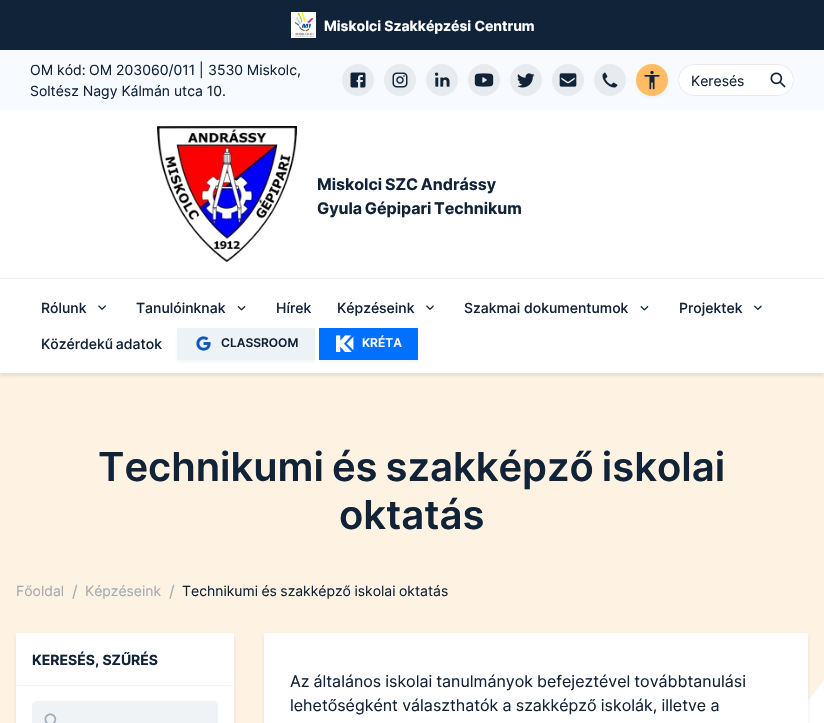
void draw(SkCanvas* canvas) {
  SkPaint paint;
  paint.setAntiAlias(true);
  auto face = [&](const char* family, int weight, float size, bool italic = false) {
    SkFontStyle style(weight, SkFontStyle::kNormal_Width,
      italic ? SkFontStyle::kItalic_Slant : SkFontStyle::kUpright_Slant);
    SkFont result(fontMgr->matchFamilyStyle(family, style), size);
    result.setSubpixel(true);
    return result;
  };
  auto writeSpaced = [&](const char* s, float x, float y, const SkFont& font, const SkPaint& ink, float letter, float word) {
    std::vector<SkGlyphID> glyphs(font.countText(s, strlen(s), SkTextEncoding::kUTF8));
    std::vector<float> xs(glyphs.size());
    font.textToGlyphs(s, strlen(s), SkTextEncoding::kUTF8, glyphs);
    font.getXPos(glyphs, xs, x);
    float extra = 0;
    for (size_t i = 0; i < glyphs.size(); i++) {
      xs[i] += extra;
      extra += letter + word * (glyphs[i] == font.unicharToGlyph(' '));
    }
    canvas->drawTextBlob(SkTextBlob::MakeFromPosHGlyphs(glyphs, xs, y, font), 0, 0, ink);
  };
  auto paste = [&](const char* path, float x, float y, float w, float h) {
    auto image = SkImages::DeferredFromEncodedData(SkData::MakeFromFileName(path));
    canvas->drawImageRect(image, SkRect::MakeXYWH(x, y, w, h), SkSamplingOptions());
  };
  auto shape = [&](const char* data, bool evenOdd = false) {
    SkPath result = *SkParsePath::FromSVGString(data);
    if (evenOdd) result.setFillType(SkPathFillType::kEvenOdd);
    return result;
  };
  canvas->clear(0xffffffff);
  paint.setColor(0xff112338);
  canvas->drawRect(SkRect::MakeXYWH(0, 0, 824, 50), paint);
  paste("img/1.png", 291, 12, 25, 26);
  paint.setColor(0xfff7faff);
  canvas->drawRect(SkRect::MakeXYWH(0, 50, 824, 60), paint);
  paint.setColor(0xffe7ebef);
  canvas->drawCircle(358, 80, 16, paint);
  paste("img/2.png", 350, 72, 16, 16);
  canvas->drawCircle(400, 80, 16, paint);
  paste("img/3.png", 392, 72, 16, 16);
  canvas->drawCircle(442, 80, 16, paint);
  paste("img/4.png", 434, 72, 16, 15);
  canvas->drawCircle(484, 80, 16, paint);
  paste("img/5.png", 474, 73, 20, 14);
  canvas->drawCircle(526, 80, 16, paint);
  paste("img/6.png", 517, 73, 18, 15);
  canvas->drawCircle(568, 80, 16, paint);
  paste("img/7.png", 559, 73, 18, 14);
  canvas->drawCircle(610, 80, 16, paint);
  paste("img/8.png", 602, 72, 16, 16);
  paint.setColor(0x0d143250);
  paint.setMaskFilter(SkMaskFilter::MakeBlur(kNormal_SkBlurStyle, 1.5f));
  canvas->drawRoundRect(SkRect::MakeXYWH(636, 66, 32, 32), 16, 16, paint);
  paint.setMaskFilter(nullptr);
  paint.setColor(0xffffbc65);
  canvas->drawCircle(652, 80, 16, paint);
  paste("img/9.png", 644, 70, 16, 20);
  paint.setColor(0xffffffff);
  canvas->drawRoundRect(SkRect::MakeXYWH(678.5f, 64.5f, 115, 31), 15.5f, 15.5f, paint);
  paint.setStroke(true);
  paint.setStrokeWidth(1);
  paint.setColor(0xffe7ebef);
  canvas->drawRoundRect(SkRect::MakeXYWH(678.5f, 64.5f, 115, 31), 15.5f, 15.5f, paint);
  paste("img/10.png", 770, 72, 16, 16);
  paint.setStroke(false);
  paint.setColor(0xffeff3f6);
  canvas->drawRect(SkRect::MakeXYWH(0, 278, 824, 1), paint);
  paste("img/11.png", 157, 126, 140, 136);
  paint.setColor(0xfffef3e2);
  canvas->drawPath(shape("M0 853V373H824V680L814 693C773 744 720 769 667 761L594 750C505 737 415 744 327 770C310 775 333 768 302 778C263 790 225 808 188 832L170 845C126 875 75 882 28 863Z"), paint);
  canvas->save();
  canvas->clipRect(SkRect::MakeXYWH(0, 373, 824, 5));
  paint.setColor(0x1a0a1f44);
  paint.setMaskFilter(SkMaskFilter::MakeBlur(kNormal_SkBlurStyle, 2));
  canvas->drawRect(SkRect::MakeXYWH(0, 282, 824, 94), paint);
  paint.setMaskFilter(nullptr);
  canvas->restore();
  paste("img/12.png", 98, 305, 8, 5);
  paste("img/13.png", 237, 305, 9, 6);
  paste("img/14.png", 426, 305, 8, 5);
  paste("img/15.png", 640, 306, 9, 5);
  paste("img/16.png", 754, 305, 8, 5);
  paint.setColor(0x0d143250);
  paint.setMaskFilter(SkMaskFilter::MakeBlur(kNormal_SkBlurStyle, 1.5f));
  canvas->drawRect(SkRect::MakeXYWH(177, 330, 138, 32), paint);
  paint.setMaskFilter(nullptr);
  paint.setColor(0xffedf2f7);
  canvas->drawRect(SkRect::MakeXYWH(177, 328, 138, 32), paint);
  paste("img/17.png", 196, 336, 15, 15);
  paint.setColor(0x0d143250);
  paint.setMaskFilter(SkMaskFilter::MakeBlur(kNormal_SkBlurStyle, 1.5f));
  canvas->drawRect(SkRect::MakeXYWH(319, 330, 99, 32), paint);
  paint.setMaskFilter(nullptr);
  paint.setColor(0xff0070ff);
  canvas->drawRect(SkRect::MakeXYWH(319, 328, 99, 32), paint);
  paste("img/18.png", 336, 335, 18, 17);
  paint.setColor(0x1a0a1f44);
  paint.setMaskFilter(SkMaskFilter::MakeBlur(kNormal_SkBlurStyle, 2));
  canvas->drawRect(SkRect::MakeXYWH(16, 636, 218, 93), paint);
  paint.setMaskFilter(nullptr);
  paint.setColor(0xffffffff);
  canvas->drawRect(SkRect::MakeXYWH(16, 633, 218, 90), paint);
  paint.setColor(0xffeff3f6);
  canvas->drawRect(SkRect::MakeXYWH(17, 685, 216, 1), paint);
  canvas->drawRoundRect(SkRect::MakeXYWH(32, 701, 186, 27), 5, 5, paint);
  paste("img/19.png", 44, 713, 13, 10);
  paint.setColor(0x1a0a1f44);
  paint.setMaskFilter(SkMaskFilter::MakeBlur(kNormal_SkBlurStyle, 2));
  canvas->drawRect(SkRect::MakeXYWH(264, 636, 544, 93), paint);
  paint.setMaskFilter(nullptr);
  paint.setColor(0xffffffff);
  canvas->drawRect(SkRect::MakeXYWH(264, 633, 544, 90), paint);
  auto f0 = face("Inter", 700, 14);
  canvas->drawString("Miskolci Szakképzési Centrum", 324, 31, f0, paint);
  auto f1 = face("Inter", 400, 14);
  paint.setColor(0xff112338);
  canvas->drawString("OM kód:", 30, 75, f1, paint);
  canvas->drawString("OM 203060/011 |", 89, 75, f1, paint);
  writeSpaced("3530 Miskolc,", 208, 75, f1, paint, 0, -0.25f);
  canvas->drawString("Soltész Nagy Kálmán utca 10.", 30, 96, f1, paint);
  canvas->drawString("Keresés", 691, 86, f1, paint);
  auto f2 = face("Inter", 700, 16);
  writeSpaced("Miskolci SZC Andrássy", 317, 190, f2, paint, 0, -1);
  writeSpaced("Gyula Gépipari Technikum", 317, 214, f2, paint, 0, -1);
  auto f3 = face("Inter", 500, 14);
  {
    const struct { const char* s; float x, y; } items[] = {
      {"Rólunk", 41, 313},
      {"Tanulóinknak", 136, 313},
      {"Hírek", 276, 313},
      {"Képzéseink", 337, 313},
      {"Szakmai dokumentumok", 464, 313},
      {"Projektek", 679, 313},
    };
    for (auto [s, x, y] : items) {
      canvas->drawString(s, x, y, f3, paint);
    }
  }
  writeSpaced("Közérdekű adatok", 41, 349, f3, paint, 0, -1);
  auto f4 = face("Inter", 600, 12);
  canvas->drawString("CLASSROOM", 221, 347, f4, paint);
  paint.setColor(0xffffffff);
  canvas->drawString("KRÉTA", 362, 347, f4, paint);
  auto f5 = face("Inter", 600, 40);
  paint.setColor(0xff112338);
  writeSpaced("Technikumi és szakképző iskolai", 98, 481, f5, paint, 0, -2);
  canvas->drawString("oktatás", 339, 529, f5, paint);
  paint.setColor(0xffa2abb1);
  canvas->drawString("Főoldal", 16, 596, f1, paint);
  auto f6 = face("Inter", 400, 16);
  canvas->drawString("/", 72, 597, f6, paint);
  canvas->drawString("Képzéseink", 85, 596, f1, paint);
  canvas->drawString("/", 169, 597, f6, paint);
  paint.setColor(0xff112338);
  writeSpaced("Technikumi és szakképző iskolai oktatás", 182, 596, f1, paint, 0, -0.5f);
  canvas->drawString("KERESÉS, SZŰRÉS", 32, 665, f0, paint);
  writeSpaced("Az általános iskolai tanulmányok befejeztével továbbtanulási", 290, 687, f6, paint, 0, -0.5f);
  writeSpaced("lehetőségként választhatók a szakképző iskolák, illetve a", 290, 711, f6, paint, 0, -0.25f);
}
